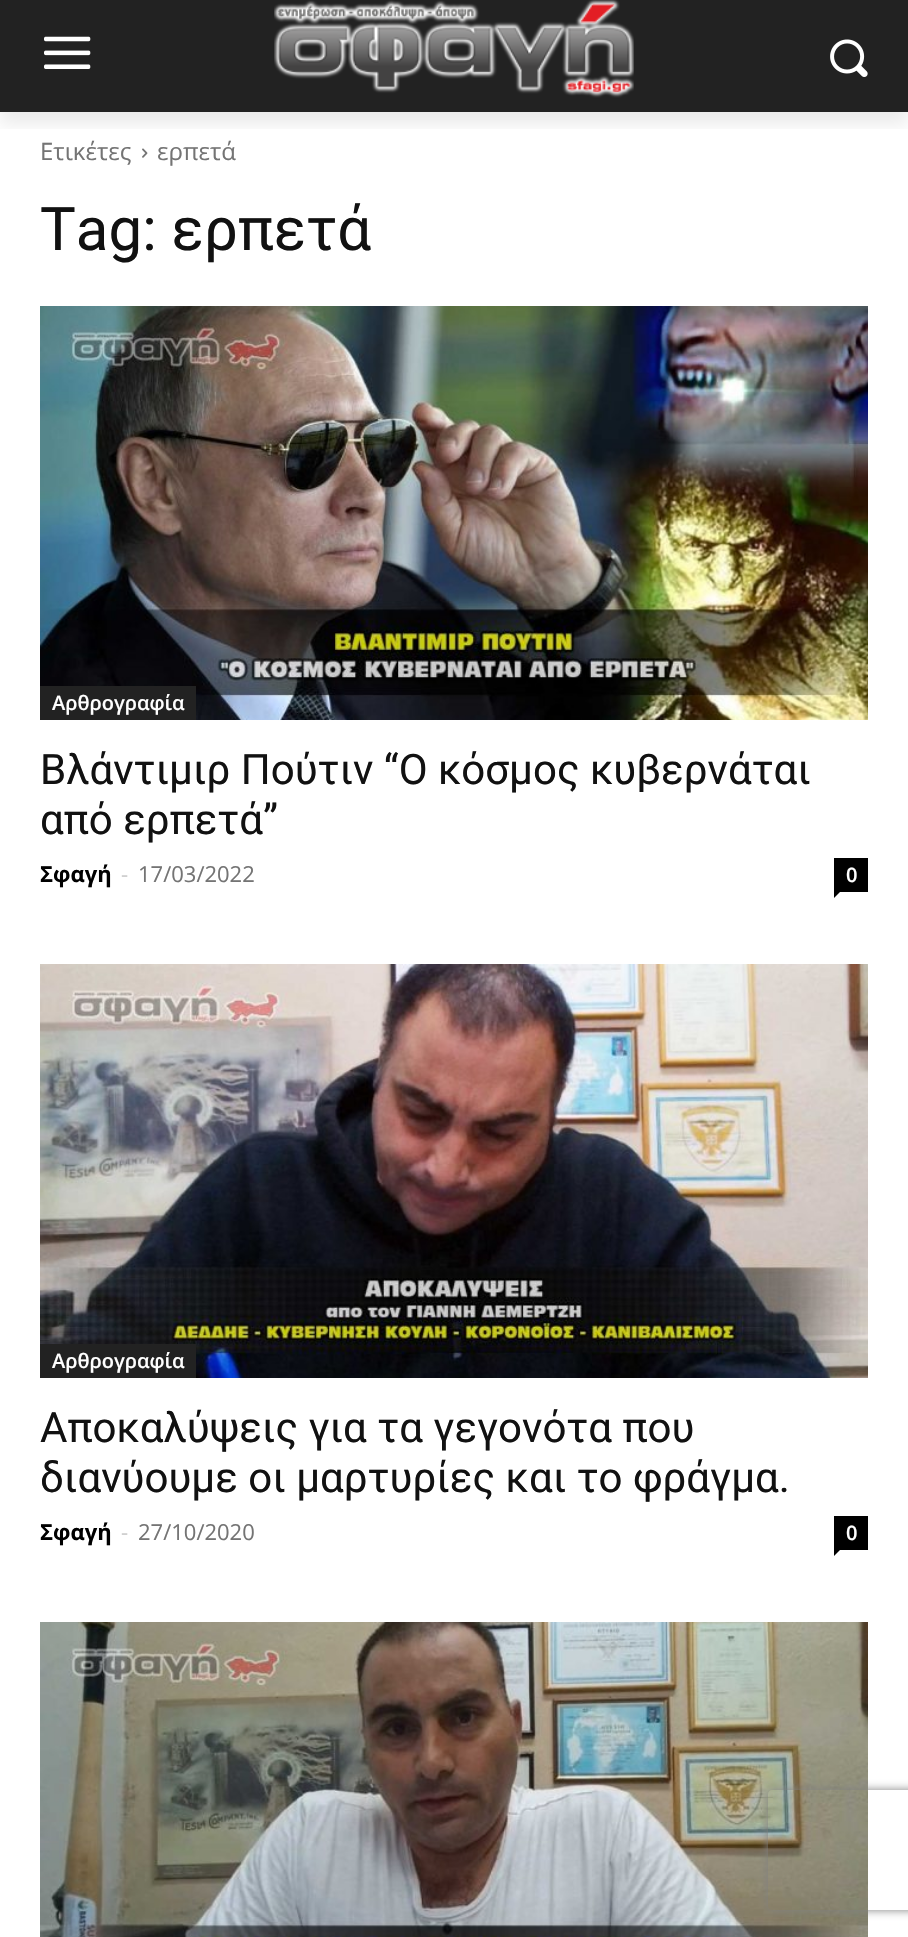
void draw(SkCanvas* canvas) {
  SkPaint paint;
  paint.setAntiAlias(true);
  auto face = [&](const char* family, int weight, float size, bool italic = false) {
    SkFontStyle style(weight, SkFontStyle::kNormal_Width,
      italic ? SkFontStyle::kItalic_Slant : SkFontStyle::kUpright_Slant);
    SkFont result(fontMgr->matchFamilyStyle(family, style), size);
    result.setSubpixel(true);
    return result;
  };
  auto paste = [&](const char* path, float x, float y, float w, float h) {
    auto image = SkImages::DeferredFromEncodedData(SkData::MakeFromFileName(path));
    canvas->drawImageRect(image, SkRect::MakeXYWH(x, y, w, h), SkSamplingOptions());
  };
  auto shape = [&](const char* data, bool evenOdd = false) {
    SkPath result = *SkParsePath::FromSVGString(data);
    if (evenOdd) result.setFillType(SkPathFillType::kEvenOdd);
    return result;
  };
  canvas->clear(0xffffffff);
  paint.setColor(0xff222222);
  canvas->drawRect(SkRect::MakeXYWH(0, 0, 908, 112), paint);
  paste("img/1.png", 44, 36, 47, 33);
  paste("img/2.png", 274, 0, 360, 98);
  paste("img/3.png", 830, 39, 38, 38);
  paste("img/4.png", 142, 148, 6, 10);
  canvas->save();
  canvas->clipRect(SkRect::MakeXYWH(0, 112, 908, 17));
  paint.setColor(0x14000000);
  paint.setMaskFilter(SkMaskFilter::MakeBlur(kNormal_SkBlurStyle, 8));
  canvas->drawRect(SkRect::MakeXYWH(0, 12, 908, 112), paint);
  paint.setMaskFilter(nullptr);
  canvas->restore();
  paste("img/5.png", 40, 306, 828, 414);
  paint.setColor(0xff222222);
  canvas->drawRect(SkRect::MakeXYWH(40, 686, 156, 34), paint);
  paint.setColor(0xff000000);
  canvas->drawRect(SkRect::MakeXYWH(834, 858, 34, 34), paint);
  canvas->drawPath(shape("M834 892H840L834 898Z"), paint);
  paste("img/6.png", 40, 964, 828, 414);
  paint.setColor(0xff222222);
  canvas->drawRect(SkRect::MakeXYWH(40, 1344, 156, 34), paint);
  paint.setColor(0xff000000);
  canvas->drawRect(SkRect::MakeXYWH(834, 1516, 34, 34), paint);
  canvas->drawPath(shape("M834 1550H840L834 1556Z"), paint);
  paste("img/7.png", 40, 1622, 828, 315);
  canvas->save();
  canvas->clipPath(shape("M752 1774H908V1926H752ZM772 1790H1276C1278 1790 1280 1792 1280 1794V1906C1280 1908 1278 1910 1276 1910H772C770 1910 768 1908 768 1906V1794C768 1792 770 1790 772 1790Z", true), true);
  paint.setColor(0xff808080);
  paint.setMaskFilter(SkMaskFilter::MakeBlur(kNormal_SkBlurStyle, 5));
  canvas->drawRoundRect(SkRect::MakeXYWH(768, 1790, 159, 120), 4, 4, paint);
  paint.setMaskFilter(nullptr);
  canvas->restore();
  auto f0 = face("Open Sans", 400, 24);
  paint.setColor(0xff747474);
  canvas->drawString("Ετικέτες", 40, 160, f0, paint);
  canvas->drawString("ερπετά", 157, 160, f0, paint);
  auto f1 = face("Roboto", 400, 60);
  paint.setColor(0xff111111);
  canvas->drawString("Tag: ερπετά", 40, 250, f1, paint);
  auto f2 = face("Open Sans", 600, 20);
  paint.setColor(0xffffffff);
  canvas->drawString("Αρθρογραφία", 52, 710, f2, paint);
  auto f3 = face("Roboto", 400, 42);
  paint.setColor(0xff111111);
  canvas->drawString("Βλάντιμιρ Πούτιν “Ο κόσμος κυβερνάται", 40, 784, f3, paint);
  canvas->drawString("από ερπετά”", 40, 834, f3, paint);
  auto f4 = face("Open Sans", 700, 22);
  paint.setColor(0xff000000);
  canvas->drawString("Σφαγή", 40, 882, f4, paint);
  auto f5 = face("Open Sans", 400, 22);
  paint.setColor(0xffcccccc);
  canvas->drawString("-", 121, 882, f5, paint);
  paint.setColor(0xff747474);
  canvas->drawString("17/03/2022", 138, 882, f5, paint);
  paint.setColor(0xffffffff);
  canvas->drawString("0", 846, 882, f2, paint);
  canvas->drawString("Αρθρογραφία", 52, 1368, f2, paint);
  paint.setColor(0xff111111);
  canvas->drawString("Αποκαλύψεις για τα γεγονότα που", 40, 1442, f3, paint);
  canvas->drawString("διανύουμε οι μαρτυρίες και το φράγμα.", 40, 1492, f3, paint);
  paint.setColor(0xff000000);
  canvas->drawString("Σφαγή", 40, 1540, f4, paint);
  paint.setColor(0xffcccccc);
  canvas->drawString("-", 121, 1540, f5, paint);
  paint.setColor(0xff747474);
  canvas->drawString("27/10/2020", 138, 1540, f5, paint);
  paint.setColor(0xffffffff);
  canvas->drawString("0", 846, 1540, f2, paint);
}
